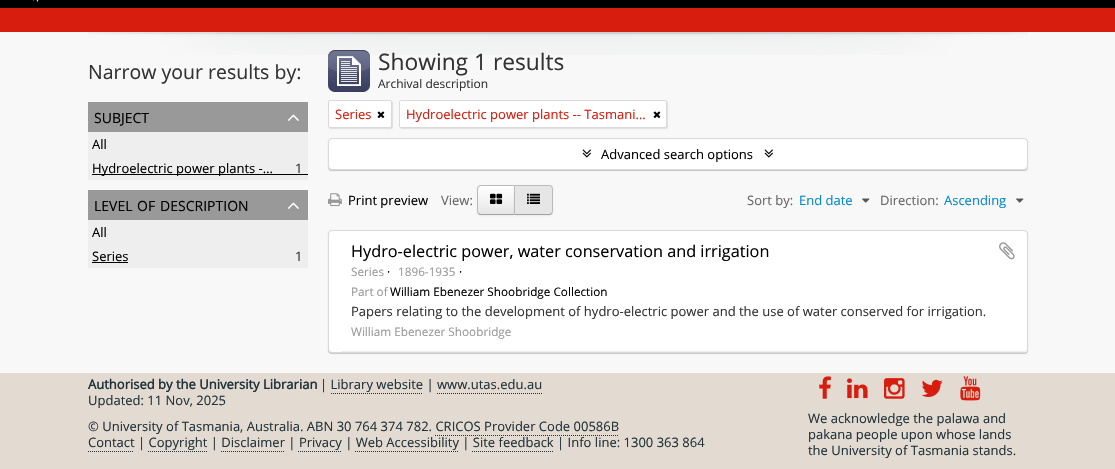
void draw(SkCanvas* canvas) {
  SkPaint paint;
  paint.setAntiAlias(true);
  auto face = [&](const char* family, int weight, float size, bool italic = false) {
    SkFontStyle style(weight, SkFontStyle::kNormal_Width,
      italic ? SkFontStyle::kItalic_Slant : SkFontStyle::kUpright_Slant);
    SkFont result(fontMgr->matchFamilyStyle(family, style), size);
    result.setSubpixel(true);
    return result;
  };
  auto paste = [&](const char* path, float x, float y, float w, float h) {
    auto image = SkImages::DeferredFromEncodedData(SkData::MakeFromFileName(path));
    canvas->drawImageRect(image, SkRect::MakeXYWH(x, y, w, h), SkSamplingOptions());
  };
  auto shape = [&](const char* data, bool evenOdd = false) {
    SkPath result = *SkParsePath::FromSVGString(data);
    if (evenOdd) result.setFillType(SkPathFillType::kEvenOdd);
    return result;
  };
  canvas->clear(0xfff8f8f8);
  paint.setColor(0xff000000);
  canvas->drawRect(SkRect::MakeXYWH(0, 0, 1115, 8), paint);
  paste("img/1.png", 33, 0, 6, 2);
  paint.setColor(0xffd71d0d);
  canvas->drawRect(SkRect::MakeXYWH(0, 8, 1115, 24), paint);
  paste("img/2.png", 88, 32, 940, 23);
  paint.setColor(0xff999999);
  canvas->drawRect(SkRect::MakeXYWH(88, 102, 220, 30), paint);
  paste("img/3.png", 288, 114, 11, 7);
  {
    const struct { float x, y, w, h; SkColor color; } items[] = {
      {88, 132, 220, 48, 0xffeeeeee},
      {92, 174, 216, 1, 0xff000000},
      {88, 190, 220, 30, 0xff999999},
    };
    for (auto [x, y, w, h, color] : items) {
      paint.setColor(color);
      canvas->drawRect(SkRect::MakeXYWH(x, y, w, h), paint);
    }
  }
  paste("img/3.png", 288, 202, 11, 7);
  paint.setColor(0xffeeeeee);
  canvas->drawRect(SkRect::MakeXYWH(88, 220, 220, 48), paint);
  paint.setColor(0xff000000);
  canvas->drawRect(SkRect::MakeXYWH(92, 262, 36, 1), paint);
  paste("img/4.png", 328, 50, 42, 42);
  paint.setColor(0x1a000000);
  paint.setMaskFilter(SkMaskFilter::MakeBlur(kNormal_SkBlurStyle, 0.5f));
  canvas->drawRoundRect(SkRect::MakeXYWH(329, 101, 64, 28), 2, 2, paint);
  paint.setMaskFilter(nullptr);
  paint.setColor(0xffffffff);
  canvas->drawRoundRect(SkRect::MakeXYWH(328.5f, 100.5f, 63, 27), 1.5f, 1.5f, paint);
  paint.setStroke(true);
  paint.setStrokeWidth(1);
  paint.setColor(0xffd9d9d9);
  canvas->drawRoundRect(SkRect::MakeXYWH(328.5f, 100.5f, 63, 27), 1.5f, 1.5f, paint);
  paste("img/5.png", 377, 111, 8, 7);
  paint.setStroke(false);
  paint.setColor(0x1a000000);
  paint.setMaskFilter(SkMaskFilter::MakeBlur(kNormal_SkBlurStyle, 0.5f));
  canvas->drawRoundRect(SkRect::MakeXYWH(400, 101, 268, 28), 2, 2, paint);
  paint.setMaskFilter(nullptr);
  paint.setColor(0xffffffff);
  canvas->drawRoundRect(SkRect::MakeXYWH(399.5f, 100.5f, 267, 27), 1.5f, 1.5f, paint);
  paint.setStroke(true);
  paint.setColor(0xffd9d9d9);
  canvas->drawRoundRect(SkRect::MakeXYWH(399.5f, 100.5f, 267, 27), 1.5f, 1.5f, paint);
  paste("img/5.png", 653, 111, 8, 7);
  paint.setStroke(false);
  paint.setColor(0x33000000);
  paint.setMaskFilter(SkMaskFilter::MakeBlur(kNormal_SkBlurStyle, 0.5f));
  canvas->drawRoundRect(SkRect::MakeXYWH(328, 139, 700, 32), 4, 4, paint);
  paint.setMaskFilter(nullptr);
  paint.setColor(0xffffffff);
  canvas->drawRoundRect(SkRect::MakeXYWH(328.5f, 138.5f, 699, 31), 3.5f, 3.5f, paint);
  paint.setStroke(true);
  paint.setColor(0xffd9d9d9);
  canvas->drawRoundRect(SkRect::MakeXYWH(328.5f, 138.5f, 699, 31), 3.5f, 3.5f, paint);
  paste("img/6.png", 582, 149, 9, 9);
  paste("img/6.png", 764, 149, 9, 9);
  paste("img/7.png", 328, 193, 14, 14);
  paint.setStroke(false);
  paint.setColor(0x0d000000);
  paint.setMaskFilter(SkMaskFilter::MakeBlur(kNormal_SkBlurStyle, 1));
  canvas->drawRoundRect(SkRect::MakeXYWH(477, 186, 38, 30), 4, 4, paint);
  paint.setMaskFilter(nullptr);
  canvas->save();
  canvas->clipPath(shape("M481 185H515V215H481C479 215 477 213 477 211V189C477 187 479 185 481 185Z"), true);
  {
    const SkColor colors[] = {0xffffffff, 0xffe6e6e6};
    const float stops[] = {0, 1};
    const SkPoint ends[] = {{496, 186}, {496, 214}};
    paint.setShader(SkGradientShader::MakeLinear(ends, colors, stops, 2, SkTileMode::kClamp));
    paint.setAlpha(255);
  }
  canvas->drawRect(SkRect::MakeXYWH(477, 186, 37, 28), paint);
  canvas->restore();
  paint.setShader(nullptr);
  paint.setColor(0xffbbbbbb);
  canvas->drawPath(shape("M481 185C480 185 479 185.5 478 186L479 187C479.5 186.5 480 186 481 186H514L515 185Z"), paint);
  paint.setColor(0xffa2a2a2);
  canvas->drawPath(shape("M515 215L514 214H481C480 214 479.5 213.5 479 213L478 214C479 214.5 480 215 481 215Z"), paint);
  paint.setColor(0xffbbbbbb);
  canvas->drawPath(shape("M477 189V211C477 212 477.5 213 478 214L479 213C478.5 212.5 478 212 478 211V189C478 188 478.5 187.5 479 187L478 186C477.5 187 477 188 477 189Z"), paint);
  paste("img/8.png", 490, 193, 13, 11);
  paint.setColor(0x0d000000);
  paint.setMaskFilter(SkMaskFilter::MakeBlur(kNormal_SkBlurStyle, 1));
  canvas->drawRoundRect(SkRect::MakeXYWH(514, 186, 39, 30), 4, 4, paint);
  paint.setMaskFilter(nullptr);
  paint.setColor(0xffe6e6e6);
  canvas->drawPath(shape("M514 185H549C551 185 553 187 553 189V211C553 213 551 215 549 215H514Z"), paint);
  paint.setColor(0xffbbbbbb);
  canvas->drawPath(shape("M514 185L515 186H549C550 186 550.5 186.5 551 187L552 186C551 185.5 550 185 549 185Z"), paint);
  canvas->drawPath(shape("M553 211V189C553 188 552.5 187 552 186L551 187C551.5 187.5 552 188 552 189V211C552 212 551.5 212.5 551 213L552 214C552.5 213 553 212 553 211Z"), paint);
  paint.setColor(0xffa2a2a2);
  canvas->drawPath(shape("M549 215C550 215 551 214.5 552 214L551 213C550.5 213.5 550 214 549 214H515L514 215Z"), paint);
  paint.setColor(0xffbbbbbb);
  canvas->drawPath(shape("M514 185V215L515 214V186Z"), paint);
  paste("img/9.png", 527, 193, 13, 11);
  paste("img/10.png", 862, 198, 8, 5);
  paste("img/10.png", 1016, 198, 8, 5);
  paint.setColor(0x33000000);
  paint.setMaskFilter(SkMaskFilter::MakeBlur(kNormal_SkBlurStyle, 0.5f));
  canvas->drawRoundRect(SkRect::MakeXYWH(328, 231, 700, 123), 4, 4, paint);
  paint.setMaskFilter(nullptr);
  paint.setColor(0xffffffff);
  canvas->drawRoundRect(SkRect::MakeXYWH(328.5f, 230.5f, 699, 122), 3.5f, 3.5f, paint);
  paint.setStroke(true);
  paint.setColor(0xffd9d9d9);
  canvas->drawRoundRect(SkRect::MakeXYWH(328.5f, 230.5f, 699, 122), 3.5f, 3.5f, paint);
  paint.setStroke(false);
  paint.setColor(0xffeeeeee);
  canvas->drawRect(SkRect::MakeXYWH(341, 351, 686, 1), paint);
  paste("img/11.png", 999, 242, 16, 18);
  paint.setColor(0xffe3dad1);
  canvas->drawRect(SkRect::MakeXYWH(0, 373, 1115, 96), paint);
  paint.setStroke(true);
  paint.setColor(0xff21333a);
  paint.setPathEffect(SkDashPathEffect::Make({{1, 1}}, 0));
  canvas->drawPath(shape("M331 393.5H423"), paint);
  paint.setPathEffect(nullptr);
  paint.setPathEffect(SkDashPathEffect::Make({{1, 1}}, 0));
  canvas->drawPath(shape("M437 393.5H542"), paint);
  paint.setPathEffect(nullptr);
  paint.setPathEffect(SkDashPathEffect::Make({{1, 1}}, 0));
  canvas->drawPath(shape("M435 435.5H619"), paint);
  paint.setPathEffect(nullptr);
  paint.setPathEffect(SkDashPathEffect::Make({{1, 1}}, 0));
  canvas->drawPath(shape("M88 451.5H134"), paint);
  paint.setPathEffect(nullptr);
  paint.setPathEffect(SkDashPathEffect::Make({{1, 1}}, 0));
  canvas->drawPath(shape("M148 451.5H207"), paint);
  paint.setPathEffect(nullptr);
  paint.setPathEffect(SkDashPathEffect::Make({{1, 1}}, 0));
  canvas->drawPath(shape("M221 451.5H285"), paint);
  paint.setPathEffect(nullptr);
  paint.setPathEffect(SkDashPathEffect::Make({{1, 1}}, 0));
  canvas->drawPath(shape("M298 451.5H341"), paint);
  paint.setPathEffect(nullptr);
  paint.setPathEffect(SkDashPathEffect::Make({{1, 1}}, 0));
  canvas->drawPath(shape("M355 451.5H458"), paint);
  paint.setPathEffect(nullptr);
  paint.setPathEffect(SkDashPathEffect::Make({{1, 1}}, 0));
  canvas->drawPath(shape("M472 451.5H553"), paint);
  paint.setPathEffect(nullptr);
  paste("img/12.png", 819, 376, 12, 23);
  paste("img/13.png", 847, 378, 21, 21);
  paste("img/14.png", 884, 378, 21, 21);
  paste("img/15.png", 921, 379, 22, 18);
  paste("img/16.png", 960, 376, 21, 25);
  auto f0 = face("Open Sans", 400, 19.5f);
  paint.setStroke(false);
  paint.setColor(0xff333333);
  canvas->drawString("Narrow your results by:", 88, 79, f0, paint);
  auto f1 = face("Open Sans", 400, 14);
  paint.setColor(0xff000000);
  canvas->drawString("SUBJECT", 94, 123, f1, paint);
  auto f2 = face("Open Sans", 400, 13);
  canvas->drawString("All", 92, 149, f2, paint);
  canvas->drawString("Hydroelectric power plants -…", 92, 173, f2, paint);
  paint.setColor(0xff333333);
  canvas->drawString("1", 295, 173, f2, paint);
  paint.setColor(0xff000000);
  {
    const struct { const char* s; float x, y; } items[] = {
      {"LEVEL", 94, 211},
      {"OF", 137, 211},
      {"DESCRIPTION", 160, 211},
    };
    for (auto [s, x, y] : items) {
      canvas->drawString(s, x, y, f1, paint);
    }
  }
  canvas->drawString("All", 92, 237, f2, paint);
  canvas->drawString("Series", 92, 261, f2, paint);
  paint.setColor(0xff333333);
  canvas->drawString("1", 295, 261, f2, paint);
  auto f3 = face("Open Sans", 400, 22.75f);
  canvas->drawString("Showing 1 results", 378, 70, f3, paint);
  auto f4 = face("Open Sans", 400, 12);
  canvas->drawString("Archival description", 378, 88, f4, paint);
  paint.setColor(0xffd71d0d);
  canvas->drawString("Series", 335, 119, f2, paint);
  canvas->drawString("Hydroelectric power plants -- Tasmani…", 406, 119, f2, paint);
  paint.setColor(0xff000000);
  canvas->drawString("Advanced search options", 601, 159, f2, paint);
  canvas->drawString("Print preview", 348, 205, f2, paint);
  paint.setColor(0xff666666);
  canvas->drawString("View:", 441, 205, f2, paint);
  canvas->drawString("Sort by:", 747, 205, f2, paint);
  paint.setColor(0xff0088cc);
  canvas->drawString("End date", 799, 205, f2, paint);
  paint.setColor(0xff666666);
  canvas->drawString("Direction:", 880, 205, f2, paint);
  paint.setColor(0xff0088cc);
  canvas->drawString("Ascending", 944, 205, f2, paint);
  auto f5 = face("Open Sans", 400, 16.25f);
  paint.setColor(0xff000000);
  canvas->drawString("Hydro-electric power, water conservation and irrigation", 351, 257, f5, paint);
  auto f6 = face("Open Sans", 400, 11.75f);
  paint.setColor(0xff999999);
  canvas->drawString("Series", 351, 276, f6, paint);
  paint.setColor(0xff000000);
  canvas->drawString("·", 387, 276, f6, paint);
  paint.setColor(0xff999999);
  canvas->drawString("1896-1935", 398, 276, f6, paint);
  paint.setColor(0xff000000);
  canvas->drawString("·", 459, 276, f6, paint);
  paint.setColor(0xff999999);
  canvas->drawString("Part of", 351, 296, f6, paint);
  paint.setColor(0xff000000);
  canvas->drawString("William Ebenezer Shoobridge Collection", 390, 296, f6, paint);
  paint.setColor(0xff333333);
  canvas->drawString("Papers relating to the development of hydro-electric power and the use of water conserved for irrigation.", 351, 316, f2, paint);
  paint.setColor(0xff999999);
  canvas->drawString("William Ebenezer Shoobridge", 351, 336, f6, paint);
  auto f7 = face("Open Sans", 700, 13);
  paint.setColor(0xff21333a);
  canvas->drawString("Authorised by the University Librarian", 88, 389, f7, paint);
  {
    const struct { const char* s; float x, y; } items[] = {
      {"| Library website | www.utas.edu.au", 320, 389},
      {"Updated: 11 Nov, 2025", 88, 405},
      {"© University of Tasmania, Australia. ABN 30 764 374 782. CRICOS Provider Code 00586B", 88, 431},
      {"Contact | Copyright | Disclaimer | Privacy | Web Accessibility | Site feedback | Info line: 1300 363 864", 88, 447},
      {"We acknowledge the palawa and", 808, 423},
      {"pakana people upon whose lands", 808, 439},
      {"the University of Tasmania stands.", 808, 455},
    };
    for (auto [s, x, y] : items) {
      canvas->drawString(s, x, y, f2, paint);
    }
  }
}
